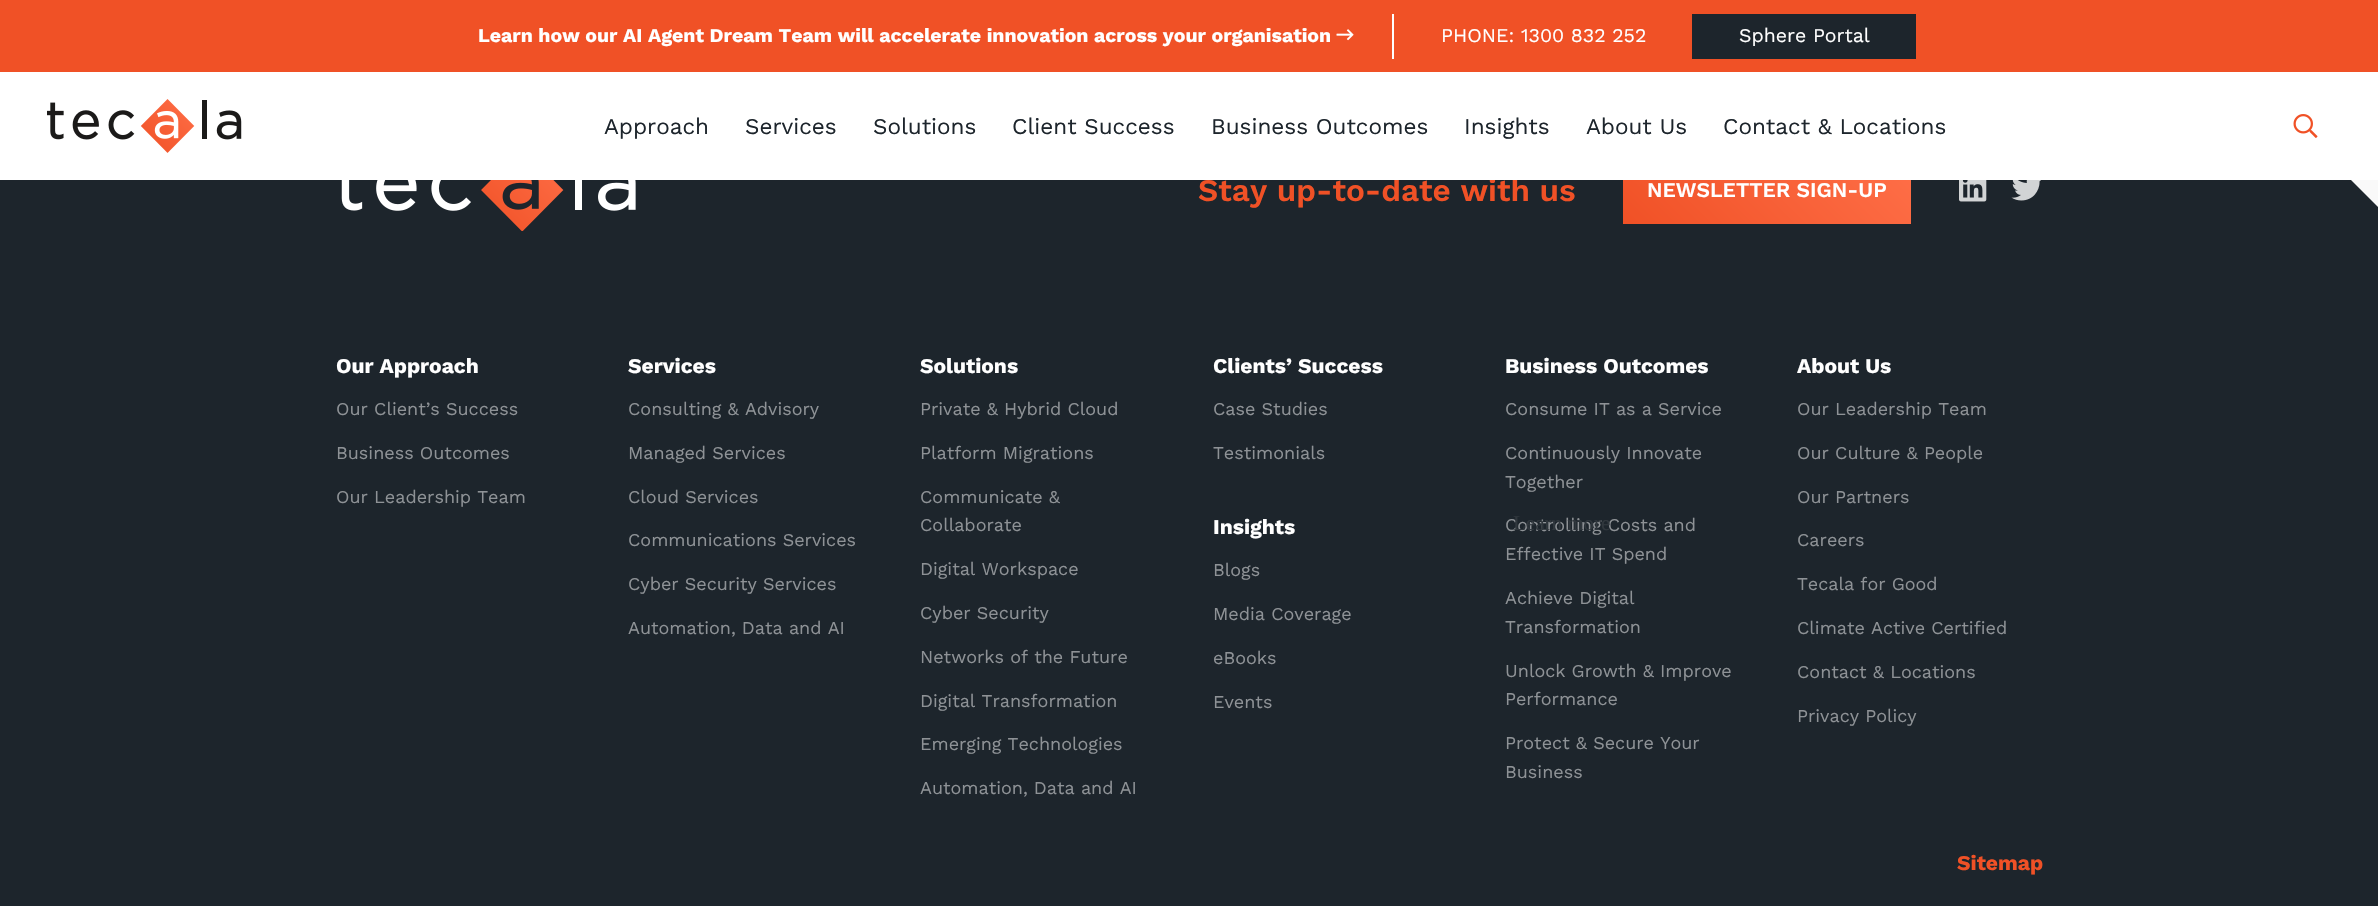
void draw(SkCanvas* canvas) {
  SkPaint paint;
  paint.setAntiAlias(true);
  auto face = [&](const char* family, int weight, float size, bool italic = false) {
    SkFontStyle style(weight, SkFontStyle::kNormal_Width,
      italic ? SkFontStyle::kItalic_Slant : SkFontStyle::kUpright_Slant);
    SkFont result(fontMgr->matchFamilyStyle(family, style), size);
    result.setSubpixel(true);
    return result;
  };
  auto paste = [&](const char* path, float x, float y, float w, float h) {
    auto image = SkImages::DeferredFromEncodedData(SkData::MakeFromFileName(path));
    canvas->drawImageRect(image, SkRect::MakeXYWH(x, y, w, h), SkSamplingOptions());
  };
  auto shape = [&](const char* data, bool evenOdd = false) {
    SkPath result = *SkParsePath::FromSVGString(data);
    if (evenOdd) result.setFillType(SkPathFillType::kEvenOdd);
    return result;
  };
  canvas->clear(0xfff9f9f9);
  paint.setColor(0xff1d252c);
  canvas->drawPath(shape("M0 29V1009H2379V208L2200 29Z"), paint);
  paint.setColor(0xfff05126);
  canvas->drawRect(SkRect::MakeXYWH(0, 0, 2378, 72), paint);
  paste("img/1.png", 1336, 29, 18, 12);
  paint.setColor(0xffffffff);
  canvas->drawRect(SkRect::MakeXYWH(1392, 14, 2, 45), paint);
  paint.setColor(0xff1d252c);
  canvas->drawRect(SkRect::MakeXYWH(1692, 14, 224, 45), paint);
  paste("img/4.png", 341, 180, 295, 51);
  {
    const SkColor colors[] = {0xffff6f48, 0xfff05126};
    const float stops[] = {0, 1};
    const SkPoint ends[] = {{1856, 101}, {1678, 279}};
    paint.setShader(SkGradientShader::MakeLinear(ends, colors, stops, 2, SkTileMode::kClamp));
    paint.setAlpha(255);
  }
  canvas->drawRect(SkRect::MakeXYWH(1623, 180, 288, 44), paint);
  paste("img/5.png", 1959, 180, 28, 22);
  paste("img/6.png", 2011, 180, 30, 21);
  auto f0 = face("Work Sans", 700, 19.5f);
  paint.setShader(nullptr);
  paint.setColor(0xffffffff);
  canvas->drawString("Learn how our AI Agent Dream Team will accelerate innovation across your organisation", 478, 42, f0, paint);
  auto f1 = face("Work Sans", 400, 19.5f);
  canvas->drawString("PHONE: 1300 832 252", 1441, 42, f1, paint);
  canvas->drawString("Sphere Portal", 1739, 42, f1, paint);
  auto f2 = face("Work Sans", 600, 31.5f);
  paint.setColor(0xfff05126);
  canvas->drawString("Stay up-to-date with us", 1198, 201, f2, paint);
  paint.setColor(0xffffffff);
  canvas->drawRect(SkRect::MakeXYWH(0, 72, 2378, 108), paint);
  auto f3 = face("Work Sans", 400, 22.5f);
  paint.setColor(0xff1d252c);
  {
    const struct { const char* s; float x, y; } items[] = {
      {"Contact & Locations", 1723, 134},
      {"About Us", 1586, 134},
      {"Insights", 1464, 134},
      {"Business Outcomes", 1211, 134},
      {"Client Success", 1012, 134},
      {"Solutions", 873, 134},
      {"Services", 745, 134},
      {"Approach", 604, 134},
    };
    for (auto [s, x, y] : items) {
      canvas->drawString(s, x, y, f3, paint);
    }
  }
  paste("img/3.png", 2293, 114, 25, 24);
  paste("img/2.png", 47, 99, 195, 54);
  auto f4 = face("Work Sans", 600, 21);
  paint.setColor(0xffffffff);
  canvas->drawString("NEWSLETTER SIGN-UP", 1647, 197, f4, paint);
  auto f5 = face("Work Sans", 700, 21);
  canvas->drawString("Our Approach", 336, 373, f5, paint);
  auto f6 = face("Work Sans", 400, 18);
  paint.setColor(0xff8e9296);
  {
    const struct { const char* s; float x, y; } items[] = {
      {"Our Client’s Success", 336, 415},
      {"Business Outcomes", 336, 459},
      {"Our Leadership Team", 336, 503},
    };
    for (auto [s, x, y] : items) {
      canvas->drawString(s, x, y, f6, paint);
    }
  }
  paint.setColor(0xffffffff);
  canvas->drawString("Services", 628, 373, f5, paint);
  paint.setColor(0xff8e9296);
  {
    const struct { const char* s; float x, y; } items[] = {
      {"Consulting & Advisory", 628, 415},
      {"Managed Services", 628, 459},
      {"Cloud Services", 628, 503},
      {"Communications Services", 628, 546},
      {"Cyber Security Services", 628, 590},
      {"Automation, Data and AI", 628, 634},
    };
    for (auto [s, x, y] : items) {
      canvas->drawString(s, x, y, f6, paint);
    }
  }
  paint.setColor(0xffffffff);
  canvas->drawString("Solutions", 920, 373, f5, paint);
  paint.setColor(0xff8e9296);
  {
    const struct { const char* s; float x, y; } items[] = {
      {"Private & Hybrid Cloud", 920, 415},
      {"Platform Migrations", 920, 459},
      {"Communicate &", 920, 503},
      {"Collaborate", 920, 531},
      {"Digital Workspace", 920, 575},
      {"Cyber Security", 920, 619},
      {"Networks of the Future", 920, 663},
      {"Digital Transformation", 920, 707},
      {"Emerging Technologies", 920, 750},
      {"Automation, Data and AI", 920, 794},
    };
    for (auto [s, x, y] : items) {
      canvas->drawString(s, x, y, f6, paint);
    }
  }
  paint.setColor(0xffffffff);
  canvas->drawString("Clients’ Success", 1213, 373, f5, paint);
  paint.setColor(0xff8e9296);
  canvas->drawString("Case Studies", 1213, 415, f6, paint);
  canvas->drawString("Testimonials", 1213, 459, f6, paint);
  paint.setColor(0xffffffff);
  canvas->drawString("Insights", 1213, 534, f5, paint);
  paint.setColor(0xff8e9296);
  {
    const struct { const char* s; float x, y; } items[] = {
      {"Blogs", 1213, 576},
      {"Media Coverage", 1213, 620},
      {"eBooks", 1213, 664},
      {"Events", 1213, 708},
    };
    for (auto [s, x, y] : items) {
      canvas->drawString(s, x, y, f6, paint);
    }
  }
  paint.setColor(0xffffffff);
  canvas->drawString("Business Outcomes", 1505, 373, f5, paint);
  paint.setColor(0xff8e9296);
  {
    const struct { const char* s; float x, y; } items[] = {
      {"Consume IT as a Service", 1505, 415},
      {"Continuously Innovate", 1505, 459},
      {"Together", 1505, 488},
      {"Controlling Costs and", 1505, 531},
      {"Effective IT Spend", 1505, 560},
      {"Achieve Digital", 1505, 604},
      {"Transformation", 1505, 633},
      {"Unlock Growth & Improve", 1505, 677},
      {"Performance", 1505, 705},
      {"Protect & Secure Your", 1505, 749},
      {"Business", 1505, 778},
    };
    for (auto [s, x, y] : items) {
      canvas->drawString(s, x, y, f6, paint);
    }
  }
  paint.setColor(0xffffffff);
  canvas->drawString("About Us", 1797, 373, f5, paint);
  paint.setColor(0xff8e9296);
  {
    const struct { const char* s; float x, y; } items[] = {
      {"Our Leadership Team", 1797, 415},
      {"Our Culture & People", 1797, 459},
      {"Our Partners", 1797, 503},
      {"Careers", 1797, 546},
      {"Tecala for Good", 1797, 590},
      {"Climate Active Certified", 1797, 634},
      {"Contact & Locations", 1797, 678},
      {"Privacy Policy", 1797, 722},
    };
    for (auto [s, x, y] : items) {
      canvas->drawString(s, x, y, f6, paint);
    }
  }
  paint.setColor(0xfff05126);
  canvas->drawString("Sitemap", 1957, 870, f5, paint);
  auto f7 = face("Liberation Serif", 400, 21);
  paint.setColor(0xff30373d);
  canvas->drawString("Learn more", 1513, 530, f7, paint);
}
